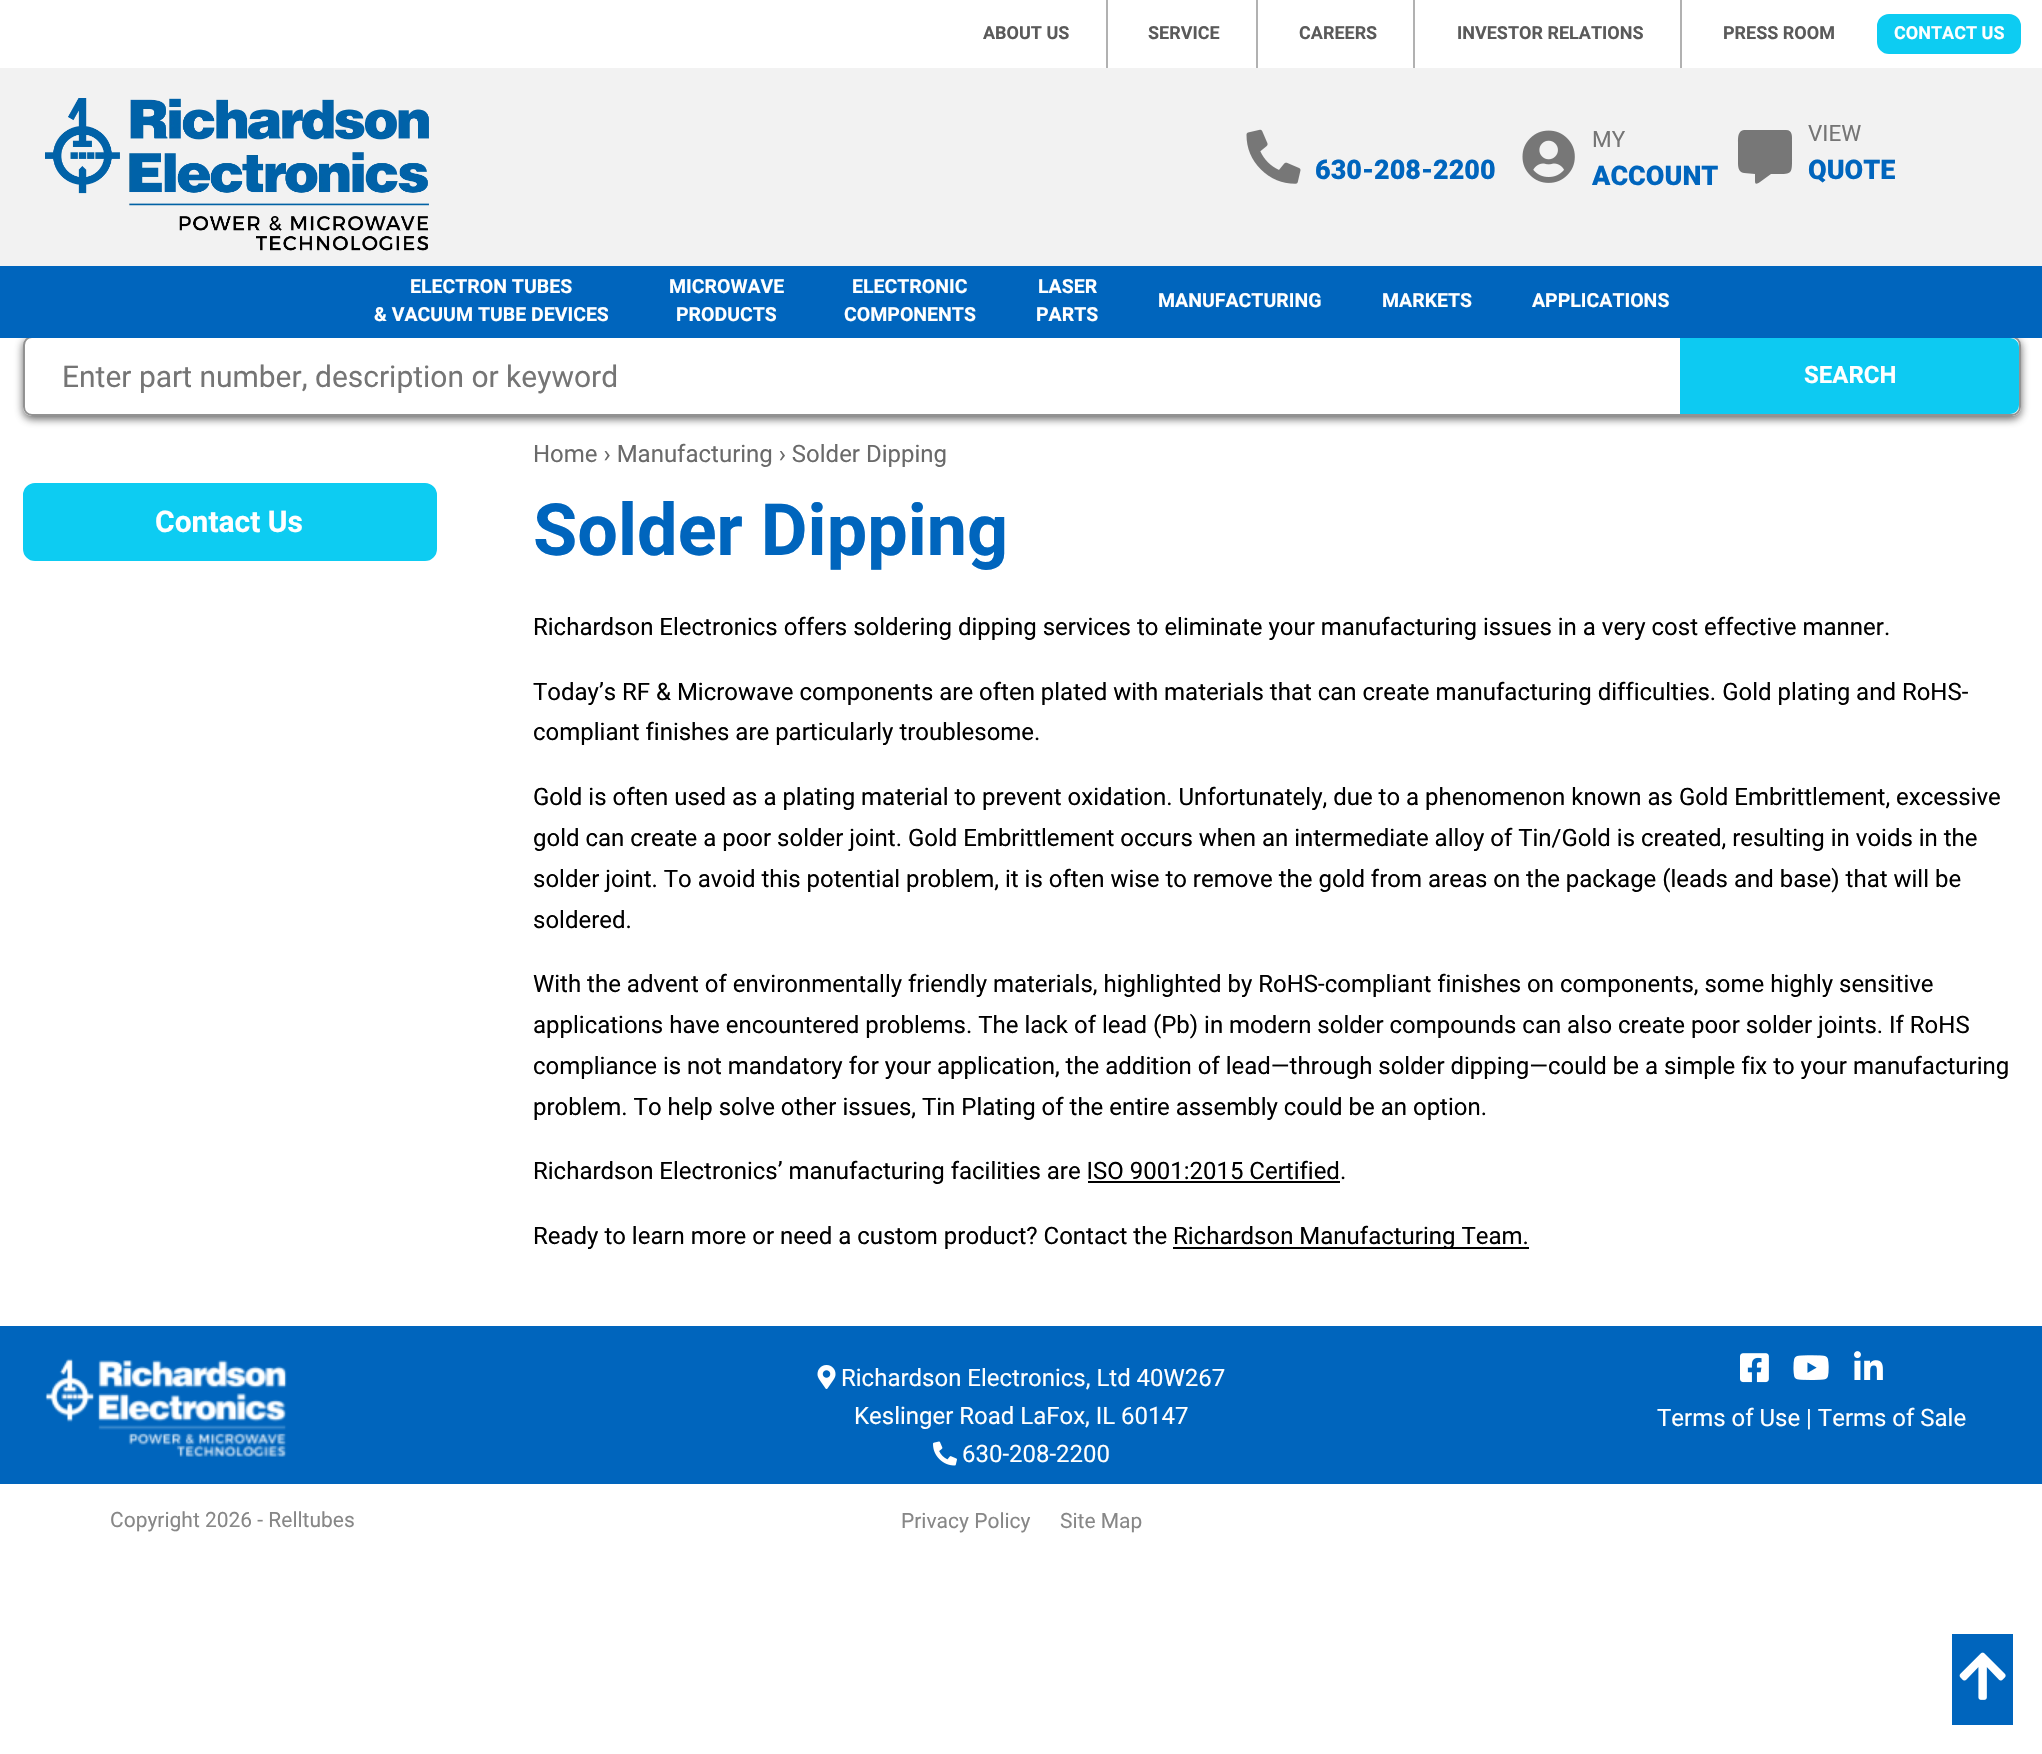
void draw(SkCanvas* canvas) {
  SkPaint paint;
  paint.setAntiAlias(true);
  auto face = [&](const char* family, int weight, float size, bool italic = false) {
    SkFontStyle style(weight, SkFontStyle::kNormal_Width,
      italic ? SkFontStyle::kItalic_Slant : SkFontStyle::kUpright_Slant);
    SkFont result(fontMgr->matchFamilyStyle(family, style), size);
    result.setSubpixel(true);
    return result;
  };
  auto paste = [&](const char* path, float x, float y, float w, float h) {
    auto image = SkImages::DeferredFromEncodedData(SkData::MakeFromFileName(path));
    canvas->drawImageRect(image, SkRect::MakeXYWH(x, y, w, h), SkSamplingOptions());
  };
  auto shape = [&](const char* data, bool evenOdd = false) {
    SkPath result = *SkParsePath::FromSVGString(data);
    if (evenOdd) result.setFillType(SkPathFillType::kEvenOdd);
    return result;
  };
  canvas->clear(0xffffffff);
  {
    const struct { float x, y, w, h; SkColor color; } items[] = {
      {0, 68, 2042, 198, 0xfff2f2f2},
      {1106, 0, 2, 68, 0xffb1b1b1},
      {1256, 0, 2, 68, 0xffb1b1b1},
      {1413, 0, 2, 68, 0xffb1b1b1},
      {1680, 0, 2, 68, 0xffb1b1b1},
    };
    for (auto [x, y, w, h, color] : items) {
      paint.setColor(color);
      canvas->drawRect(SkRect::MakeXYWH(x, y, w, h), paint);
    }
  }
  paint.setColor(0xff0dccf2);
  canvas->drawRoundRect(SkRect::MakeXYWH(1878, 15, 142, 38), 11, 11, paint);
  paint.setStroke(true);
  paint.setStrokeWidth(2);
  canvas->drawRoundRect(SkRect::MakeXYWH(1878, 15, 142, 38), 11, 11, paint);
  paste("img/1.png", 45, 98, 384, 153);
  paste("img/2.png", 1246, 129, 55, 55);
  paste("img/3.png", 1522, 130, 53, 53);
  paint.setStroke(false);
  paint.setColor(0xff777777);
  canvas->drawPath(shape("M1786 130C1793 130 1792 137 1792 142V152C1792 176 1794 174 1771 174L1760 182C1757 184 1755 185 1755 181V174L1744 173C1738 172 1738 166 1738 162V142C1738 137 1738 131 1744 130Z"), paint);
  canvas->save();
  canvas->clipPath(shape("M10 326H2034V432H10ZM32 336H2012C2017 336 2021 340 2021 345V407C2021 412 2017 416 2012 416H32C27 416 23 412 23 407V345C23 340 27 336 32 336Z", true), true);
  paint.setColor(0xbf323232);
  paint.setMaskFilter(SkMaskFilter::MakeBlur(kNormal_SkBlurStyle, 4));
  canvas->drawRoundRect(SkRect::MakeXYWH(23, 339, 1998, 80), 9, 9, paint);
  paint.setMaskFilter(nullptr);
  canvas->restore();
  paint.setStroke(true);
  paint.setColor(0xff929292);
  canvas->drawRoundRect(SkRect::MakeXYWH(24, 337, 1996, 78), 8, 8, paint);
  paint.setStroke(false);
  paint.setColor(0xff0065bd);
  canvas->drawRect(SkRect::MakeXYWH(0, 266, 2042, 72), paint);
  paint.setColor(0xff0dcaf2);
  canvas->drawPath(shape("M1680 338H2010C2015 338 2019 342 2019 347V405C2019 410 2015 414 2010 414H1680Z"), paint);
  paint.setColor(0xff0dccf2);
  canvas->drawRoundRect(SkRect::MakeXYWH(24, 484, 412, 76), 11, 11, paint);
  paint.setStroke(true);
  canvas->drawRoundRect(SkRect::MakeXYWH(24, 484, 412, 76), 11, 11, paint);
  paint.setStroke(false);
  {
    const struct { float x, y, w, h; SkColor color; } items[] = {
      {1088, 1181, 252, 2, 0xff000000},
      {1173, 1247, 356, 2, 0xff000000},
      {0, 1326, 2042, 158, 0xff0065bd},
    };
    for (auto [x, y, w, h, color] : items) {
      paint.setColor(color);
      canvas->drawRect(SkRect::MakeXYWH(x, y, w, h), paint);
    }
  }
  paste("img/4.png", 45, 1358, 242, 99);
  paste("img/5.png", 817, 1365, 19, 24);
  paste("img/6.png", 933, 1441, 24, 25);
  paste("img/7.png", 1740, 1353, 29, 30);
  paste("img/8.png", 1793, 1355, 36, 25);
  paste("img/9.png", 1854, 1351, 29, 29);
  canvas->drawRect(SkRect::MakeXYWH(1952, 1634, 61, 91), paint);
  paste("img/10.png", 1959, 1652, 47, 48);
  auto f0 = face("Roboto", 700, 18);
  paint.setColor(0xff5a5a5a);
  {
    const struct { const char* s; float x, y; } items[] = {
      {"ABOUT US", 983, 39},
      {"SERVICE", 1148, 39},
      {"CAREERS", 1299, 39},
      {"INVESTOR RELATIONS", 1457, 39},
      {"PRESS ROOM", 1723, 39},
    };
    for (auto [s, x, y] : items) {
      canvas->drawString(s, x, y, f0, paint);
    }
  }
  paint.setColor(0xffffffff);
  canvas->drawString("CONTACT US", 1894, 39, f0, paint);
  auto f1 = face("Roboto", 900, 27);
  paint.setColor(0xff0065bd);
  canvas->drawString("630-208-2200", 1315, 179, f1, paint);
  auto f2 = face("Roboto", 400, 22.5f);
  paint.setColor(0xff757575);
  canvas->drawString("MY", 1592, 147, f2, paint);
  paint.setColor(0xff0065bd);
  canvas->drawString("ACCOUNT", 1592, 185, f1, paint);
  paint.setColor(0xff757575);
  canvas->drawString("VIEW", 1808, 141, f2, paint);
  paint.setColor(0xff0065bd);
  canvas->drawString("QUOTE", 1808, 179, f1, paint);
  auto f3 = face("Roboto", 700, 19.5f);
  paint.setColor(0xffffffff);
  {
    const struct { const char* s; float x, y; } items[] = {
      {"ELECTRON TUBES", 410, 293},
      {"& VACUUM TUBE DEVICES", 374, 321},
      {"MICROWAVE", 669, 293},
      {"PRODUCTS", 676, 321},
      {"ELECTRONIC", 852, 293},
      {"COMPONENTS", 844, 321},
      {"LASER", 1038, 293},
      {"PARTS", 1036, 321},
      {"MANUFACTURING", 1158, 307},
      {"MARKETS", 1382, 307},
      {"APPLICATIONS", 1532, 307},
    };
    for (auto [s, x, y] : items) {
      canvas->drawString(s, x, y, f3, paint);
    }
  }
  auto f4 = face("Roboto", 400, 30);
  paint.setColor(0xff757575);
  canvas->drawString("Enter part number, description or keyword", 62, 387, f4, paint);
  auto f5 = face("Roboto", 700, 24);
  paint.setColor(0xffffffff);
  canvas->drawString("SEARCH", 1804, 383, f5, paint);
  auto f6 = face("Roboto", 700, 30);
  canvas->drawString("Contact Us", 155, 532, f6, paint);
  auto f7 = face("Roboto", 400, 24);
  paint.setColor(0xff6a6a6a);
  canvas->drawString("Home › Manufacturing › Solder Dipping", 533, 462, f7, paint);
  auto f8 = face("Roboto", 700, 72);
  paint.setColor(0xff0065bd);
  canvas->drawString("Solder Dipping", 533, 555, f8, paint);
  paint.setColor(0xff000000);
  {
    const struct { const char* s; float x, y; } items[] = {
      {"Richardson Electronics offers soldering dipping services to eliminate your manufacturing issues in a very cost effective manner.", 533, 635},
      {"Today’s RF & Microwave components are often plated with materials that can create manufacturing difficulties. Gold plating and RoHS-", 533, 700},
      {"compliant finishes are particularly troublesome.", 533, 740},
      {"Gold is often used as a plating material to prevent oxidation. Unfortunately, due to a phenomenon known as Gold Embrittlement, excessive", 533, 805},
      {"gold can create a poor solder joint. Gold Embrittlement occurs when an intermediate alloy of Tin/Gold is created, resulting in voids in the", 533, 846},
      {"solder joint. To avoid this potential problem, it is often wise to remove the gold from areas on the package (leads and base) that will be", 533, 887},
      {"soldered.", 533, 928},
      {"With the advent of environmentally friendly materials, highlighted by RoHS-compliant finishes on components, some highly sensitive", 533, 992},
      {"applications have encountered problems. The lack of lead (Pb) in modern solder compounds can also create poor solder joints. If RoHS", 533, 1033},
      {"compliance is not mandatory for your application, the addition of lead—through solder dipping—could be a simple fix to your manufacturing", 533, 1074},
      {"problem. To help solve other issues, Tin Plating of the entire assembly could be an option.", 533, 1115},
      {"Richardson Electronics’ manufacturing facilities are ISO 9001:2015 Certified.", 533, 1179},
      {"Ready to learn more or need a custom product? Contact the", 533, 1244},
      {"Richardson Manufacturing Team.", 1173, 1244},
    };
    for (auto [s, x, y] : items) {
      canvas->drawString(s, x, y, f7, paint);
    }
  }
  paint.setColor(0xffffffff);
  {
    const struct { const char* s; float x, y; } items[] = {
      {"Richardson Electronics, Ltd 40W267", 841, 1386},
      {"Keslinger Road LaFox, IL 60147", 854, 1424},
      {"630-208-2200", 962, 1462},
      {"Terms of Use | Terms of Sale", 1657, 1426},
    };
    for (auto [s, x, y] : items) {
      canvas->drawString(s, x, y, f7, paint);
    }
  }
  auto f9 = face("Roboto", 400, 21);
  paint.setColor(0xff878787);
  {
    const struct { const char* s; float x, y; } items[] = {
      {"Copyright 2026 - Relltubes", 110, 1527},
      {"Privacy Policy", 901, 1528},
      {"Site Map", 1060, 1528},
    };
    for (auto [s, x, y] : items) {
      canvas->drawString(s, x, y, f9, paint);
    }
  }
}
